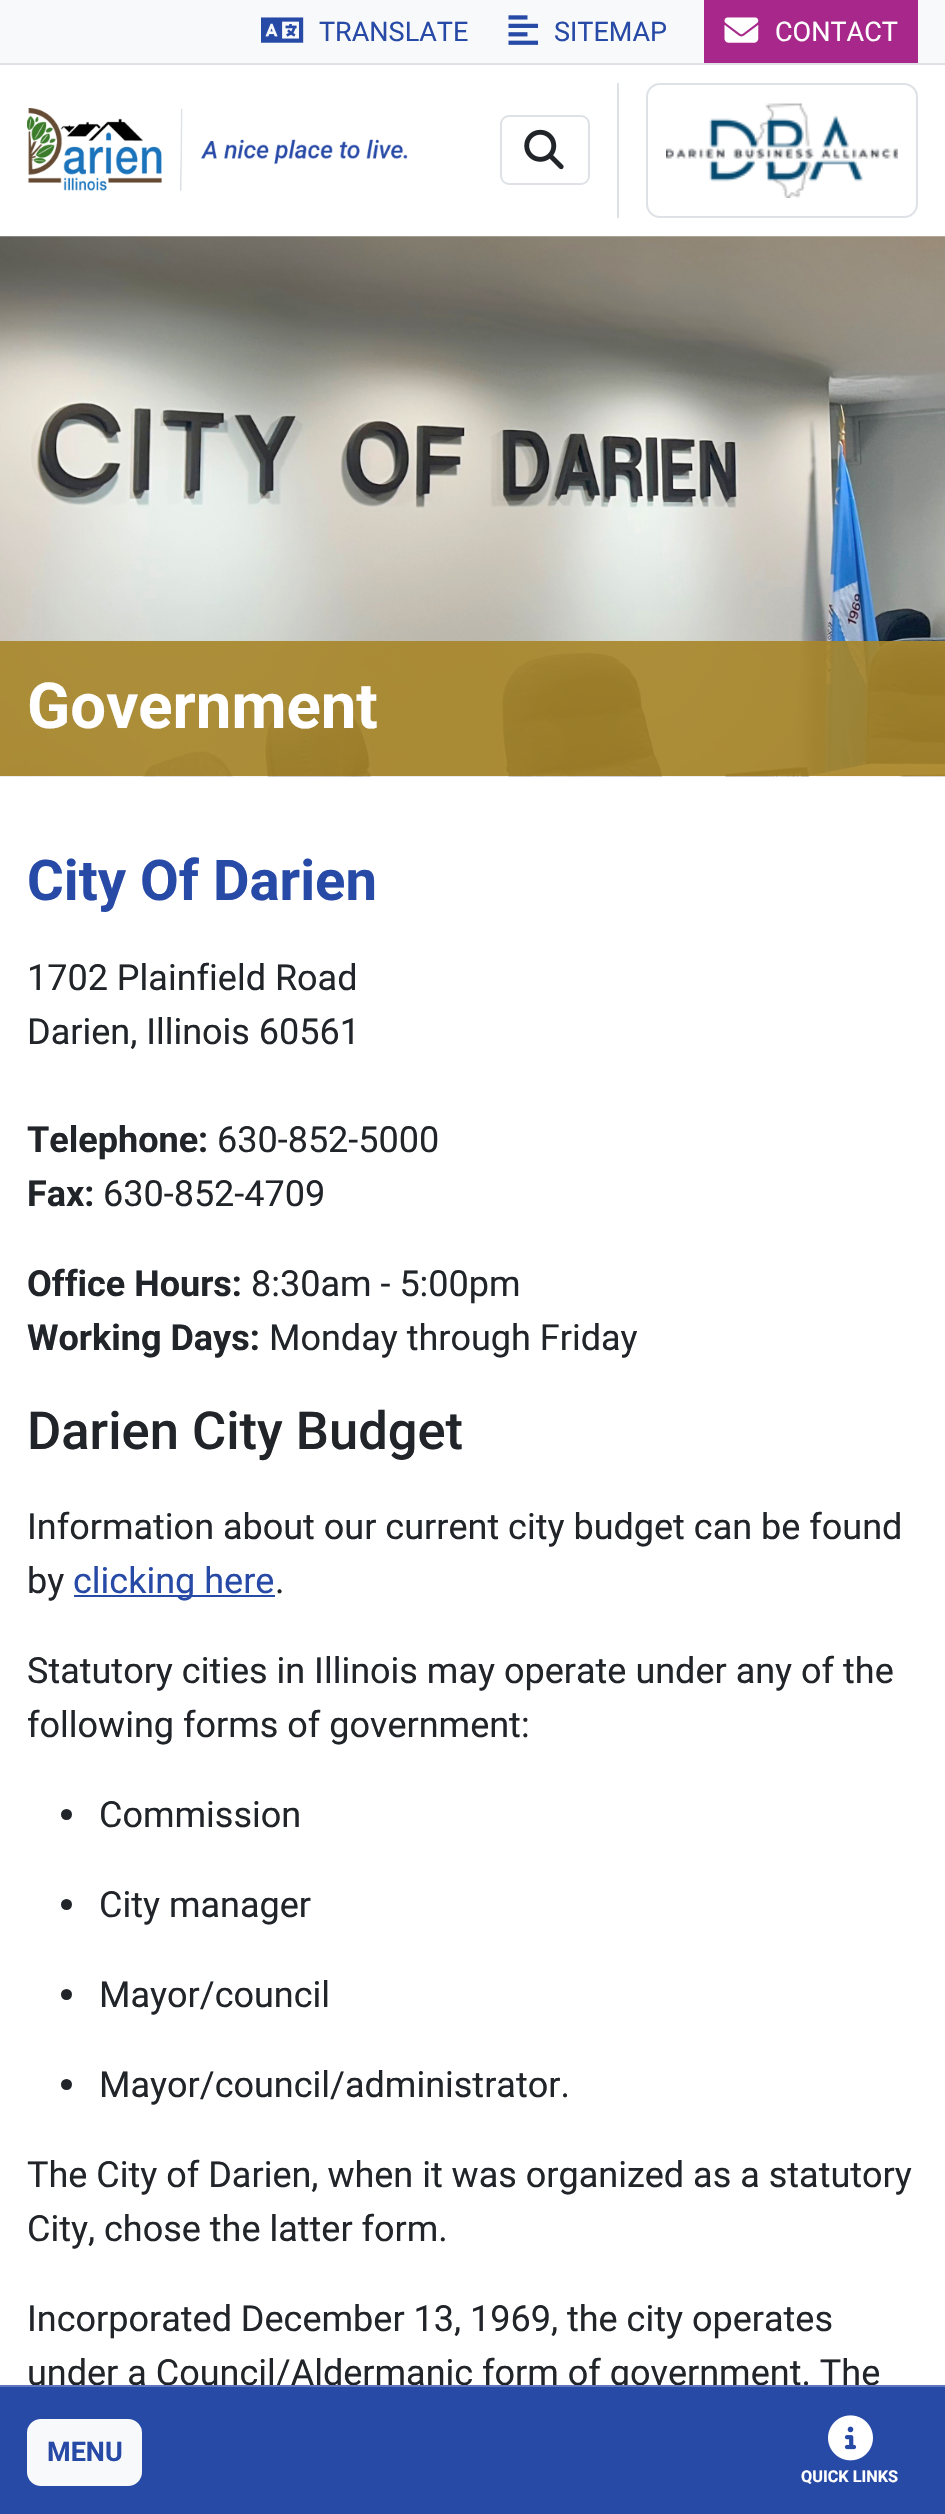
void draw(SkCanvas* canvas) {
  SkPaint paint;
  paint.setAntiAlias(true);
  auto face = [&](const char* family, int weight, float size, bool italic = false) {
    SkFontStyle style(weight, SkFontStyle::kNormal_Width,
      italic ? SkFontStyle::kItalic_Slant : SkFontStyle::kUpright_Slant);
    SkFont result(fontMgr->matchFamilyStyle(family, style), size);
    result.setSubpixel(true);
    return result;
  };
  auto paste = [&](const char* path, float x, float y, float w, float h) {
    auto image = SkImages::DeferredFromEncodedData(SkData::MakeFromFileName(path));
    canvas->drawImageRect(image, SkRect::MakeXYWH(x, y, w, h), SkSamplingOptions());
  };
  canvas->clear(0xffffffff);
  paint.setColor(0xfff8f9fa);
  canvas->drawRect(SkRect::MakeXYWH(0, 0, 945, 63), paint);
  paint.setColor(0xffdee2e6);
  canvas->drawRect(SkRect::MakeXYWH(0, 63, 945, 2), paint);
  paste("img/1.png", 261, 17, 43, 26);
  paste("img/2.png", 508, 15, 31, 30);
  paint.setColor(0xffa7288a);
  canvas->drawRect(SkRect::MakeXYWH(704, 0, 214, 63), paint);
  paste("img/3.png", 724, 17, 35, 26);
  paste("img/4.png", 27, 108, 381, 83);
  paint.setStroke(true);
  paint.setStrokeWidth(2);
  paint.setColor(0xffdee2e6);
  canvas->drawRoundRect(SkRect::MakeXYWH(501, 116, 88, 68), 8, 8, paint);
  paste("img/5.png", 524, 129, 40, 41);
  paint.setStroke(false);
  canvas->drawRect(SkRect::MakeXYWH(617, 83, 2, 135), paint);
  paint.setStroke(true);
  canvas->drawRoundRect(SkRect::MakeXYWH(647, 84, 270, 133), 13, 13, paint);
  paste("img/6.png", 666, 103, 232, 95);
  paste("img/7.png", 0, 236, 945, 541);
  paint.setStroke(false);
  paint.setColor(0xe6a78528);
  canvas->drawRect(SkRect::MakeXYWH(0, 641, 945, 135), paint);
  paint.setColor(0xff284aa7);
  canvas->drawRect(SkRect::MakeXYWH(74, 1595, 201, 2), paint);
  paint.setColor(0xff212529);
  canvas->drawCircle(66.5f, 1814.5f, 5.5f, paint);
  canvas->drawCircle(66.5f, 1904.5f, 5.5f, paint);
  canvas->drawCircle(66.5f, 1994.5f, 5.5f, paint);
  canvas->drawCircle(66.5f, 2084.5f, 5.5f, paint);
  auto f0 = face("Roboto", 400, 27);
  paint.setColor(0xff284aa7);
  canvas->drawString("TRANSLATE", 319, 41, f0, paint);
  canvas->drawString("SITEMAP", 554, 41, f0, paint);
  paint.setColor(0xffffffff);
  canvas->drawString("CONTACT", 775, 41, f0, paint);
  auto f1 = face("Roboto", 700, 63.5f);
  canvas->drawString("Government", 27, 728, f1, paint);
  auto f2 = face("Roboto", 700, 56.25f);
  paint.setColor(0xff284aa7);
  canvas->drawString("City Of Darien", 27, 900, f2, paint);
  auto f3 = face("Roboto", 400, 36);
  paint.setColor(0xff212529);
  canvas->drawString("1702 Plainfield Road", 27, 990, f3, paint);
  canvas->drawString("Darien, Illinois 60561", 27, 1044, f3, paint);
  auto f4 = face("Roboto", 700, 36);
  canvas->drawString("Telephone:", 27, 1152, f4, paint);
  canvas->drawString("630-852-5000", 217, 1152, f3, paint);
  canvas->drawString("Fax:", 27, 1206, f4, paint);
  canvas->drawString("630-852-4709", 103, 1206, f3, paint);
  canvas->drawString("Office Hours:", 27, 1296, f4, paint);
  canvas->drawString("8:30am - 5:00pm", 251, 1296, f3, paint);
  canvas->drawString("Working Days:", 27, 1350, f4, paint);
  canvas->drawString("Monday through Friday", 269, 1350, f3, paint);
  auto f5 = face("Roboto", 500, 52.5f);
  canvas->drawString("Darien City Budget", 27, 1449, f5, paint);
  canvas->drawString("Information about our current city budget can be found", 27, 1539, f3, paint);
  canvas->drawString("by", 27, 1593, f3, paint);
  paint.setColor(0xff284aa7);
  canvas->drawString("clicking here", 73, 1593, f3, paint);
  paint.setColor(0xff212529);
  {
    const struct { const char* s; float x, y; } items[] = {
      {".", 275, 1593},
      {"Statutory cities in Illinois may operate under any of the", 27, 1683},
      {"following forms of government:", 27, 1737},
      {"Commission", 99, 1827},
      {"City manager", 99, 1917},
      {"Mayor/council", 99, 2007},
      {"Mayor/council/administrator.", 99, 2097},
      {"The City of Darien, when it was organized as a statutory", 27, 2187},
      {"City, chose the latter form.", 27, 2241},
      {"Incorporated December 13, 1969, the city operates", 27, 2331},
      {"under a Council/Aldermanic form of government. The", 27, 2385},
    };
    for (auto [s, x, y] : items) {
      canvas->drawString(s, x, y, f3, paint);
    }
  }
  paint.setColor(0xff284aa7);
  canvas->drawRect(SkRect::MakeXYWH(0, 2387, 945, 127), paint);
  paint.setColor(0xff5e77bd);
  canvas->drawRect(SkRect::MakeXYWH(0, 2385, 945, 2), paint);
  paint.setColor(0xfff8f9fa);
  canvas->drawRoundRect(SkRect::MakeXYWH(28, 2420, 113, 65), 13, 13, paint);
  paint.setStroke(true);
  canvas->drawRoundRect(SkRect::MakeXYWH(28, 2420, 113, 65), 13, 13, paint);
  auto f6 = face("Roboto", 700, 27);
  paint.setStroke(false);
  paint.setColor(0xff284aa7);
  canvas->drawString("MENU", 47, 2461, f6, paint);
  paste("img/8.png", 828, 2415, 45, 46);
  auto f7 = face("Roboto", 700, 16.25f);
  paint.setColor(0xffffffff);
  canvas->drawString("QUICK LINKS", 801, 2482, f7, paint);
}
